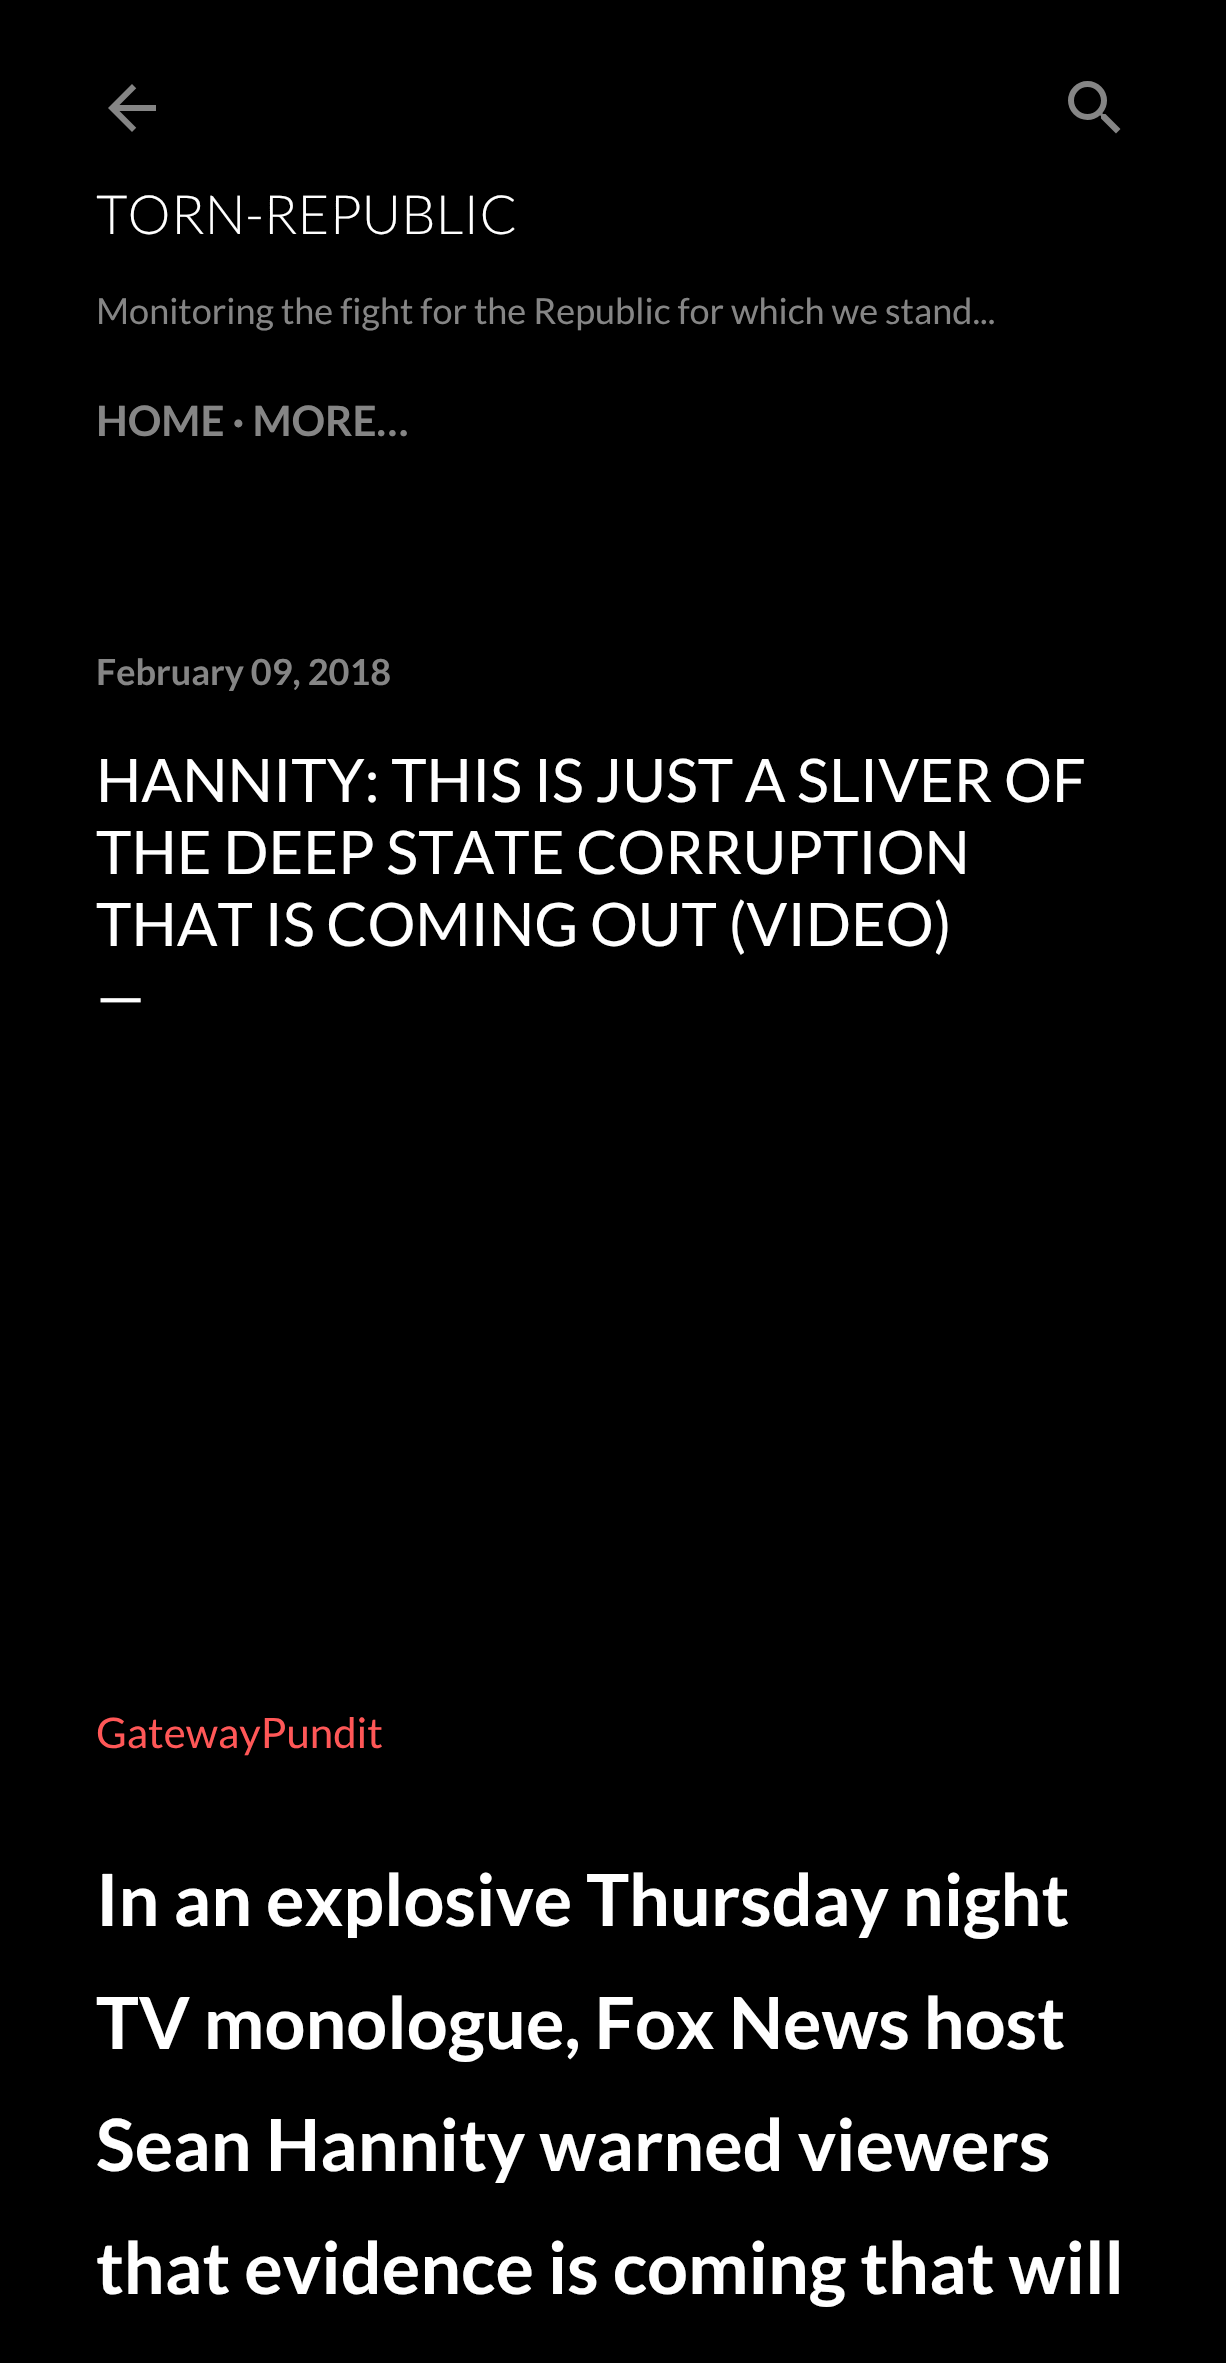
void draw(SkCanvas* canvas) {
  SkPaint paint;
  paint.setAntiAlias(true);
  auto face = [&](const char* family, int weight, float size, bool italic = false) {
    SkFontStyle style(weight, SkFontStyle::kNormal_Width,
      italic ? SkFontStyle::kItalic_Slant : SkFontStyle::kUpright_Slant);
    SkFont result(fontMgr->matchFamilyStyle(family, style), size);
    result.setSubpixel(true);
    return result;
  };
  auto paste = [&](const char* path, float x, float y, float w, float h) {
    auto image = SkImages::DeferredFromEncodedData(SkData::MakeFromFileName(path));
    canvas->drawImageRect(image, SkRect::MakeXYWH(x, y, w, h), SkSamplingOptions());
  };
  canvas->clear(0xff000000);
  paste("img/1.png", 108, 84, 48, 48);
  paste("img/2.png", 1068, 81, 53, 53);
  auto f0 = face("Lato", 300, 54);
  paint.setColor(0xffffffff);
  canvas->drawString("TORN-REPUBLIC", 96, 234, f0, paint);
  auto f1 = face("Lato", 400, 36);
  paint.setColor(0xff858585);
  canvas->drawString("Monitoring the fight for the Republic for which we stand...", 96, 324, f1, paint);
  auto f2 = face("Lato", 700, 42);
  canvas->drawString("HOME · MORE…", 96, 436, f2, paint);
  auto f3 = face("Lato", 700, 36);
  canvas->drawString("February 09, 2018", 96, 685, f3, paint);
  auto f4 = face("Lato", 400, 60);
  paint.setColor(0xffffffff);
  {
    const struct { const char* s; float x, y; } items[] = {
      {"HANNITY: THIS IS JUST A SLIVER OF", 96, 802},
      {"THE DEEP STATE CORRUPTION", 96, 874},
      {"THAT IS COMING OUT (VIDEO)", 96, 946},
      {"—", 96, 1018},
    };
    for (auto [s, x, y] : items) {
      canvas->drawString(s, x, y, f4, paint);
    }
  }
  auto f5 = face("Lato", 400, 42);
  paint.setColor(0xffff5757);
  canvas->drawString("GatewayPundit", 96, 1748, f5, paint);
  auto f6 = face("Lato", 700, 72);
  paint.setColor(0xffffffff);
  {
    const struct { const char* s; float x, y; } items[] = {
      {"In an explosive Thursday night", 96, 1926},
      {"TV monologue, Fox News host", 96, 2049},
      {"Sean Hannity warned viewers", 96, 2171},
      {"that evidence is coming that will", 96, 2294},
    };
    for (auto [s, x, y] : items) {
      canvas->drawString(s, x, y, f6, paint);
    }
  }
}
